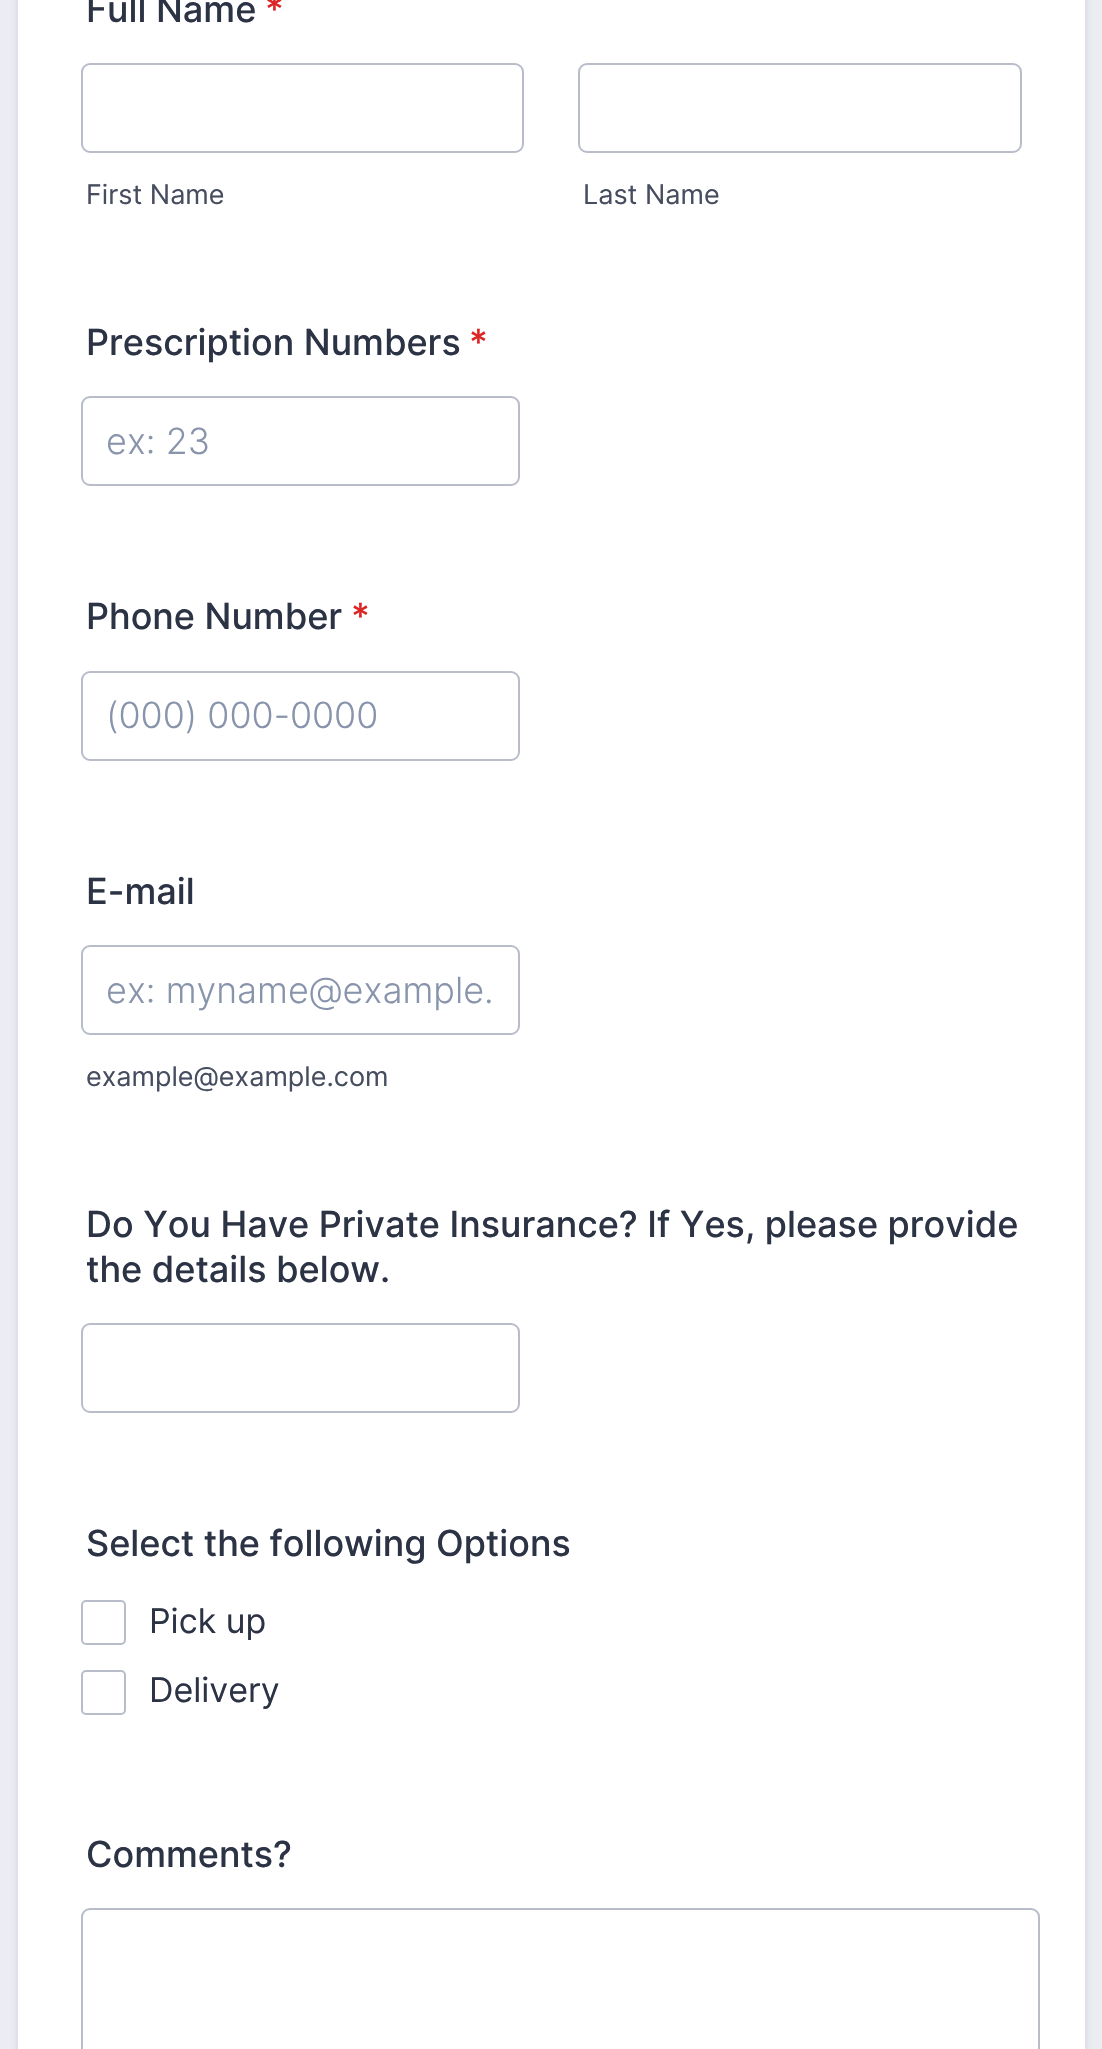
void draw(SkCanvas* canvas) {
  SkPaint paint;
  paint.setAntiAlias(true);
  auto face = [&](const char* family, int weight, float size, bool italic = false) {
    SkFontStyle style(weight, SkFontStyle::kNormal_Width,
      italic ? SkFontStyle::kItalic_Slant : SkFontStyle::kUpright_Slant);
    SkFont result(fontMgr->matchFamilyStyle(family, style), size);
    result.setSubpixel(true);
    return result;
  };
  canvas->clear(0xffecedf3);
  paint.setColor(0x3657647e);
  paint.setMaskFilter(SkMaskFilter::MakeBlur(kNormal_SkBlurStyle, 4.5f));
  canvas->drawRoundRect(SkRect::MakeXYWH(18, -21, 1067, 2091), 7, 7, paint);
  paint.setMaskFilter(nullptr);
  paint.setColor(0xffffffff);
  canvas->drawRect(SkRect::MakeXYWH(18, 0, 1067, 2049), paint);
  paint.setStroke(true);
  paint.setStrokeWidth(2);
  paint.setColor(0xffb8bdc9);
  canvas->drawRoundRect(SkRect::MakeXYWH(82, 64, 441, 88), 8, 8, paint);
  canvas->drawRoundRect(SkRect::MakeXYWH(579, 64, 442, 88), 8, 8, paint);
  canvas->drawRoundRect(SkRect::MakeXYWH(82, 397, 437, 88), 8, 8, paint);
  canvas->drawRoundRect(SkRect::MakeXYWH(82, 672, 437, 88), 8, 8, paint);
  canvas->drawRoundRect(SkRect::MakeXYWH(82, 946, 437, 88), 8, 8, paint);
  canvas->drawRoundRect(SkRect::MakeXYWH(82, 1324, 437, 88), 8, 8, paint);
  canvas->drawRoundRect(SkRect::MakeXYWH(82, 1601, 43, 43), 4, 4, paint);
  canvas->drawRoundRect(SkRect::MakeXYWH(82, 1671, 43, 43), 4, 4, paint);
  canvas->drawRoundRect(SkRect::MakeXYWH(82, 1909, 957, 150), 8, 8, paint);
  auto f0 = face("Inter", 500, 36);
  paint.setStroke(false);
  paint.setColor(0xff2c3345);
  canvas->drawString("Full Name", 86, 22, f0, paint);
  paint.setColor(0xffdc2626);
  canvas->drawString("*", 265, 22, f0, paint);
  auto f1 = face("Inter", 400, 27);
  paint.setColor(0xff464d5f);
  canvas->drawString("First Name", 86, 204, f1, paint);
  canvas->drawString("Last Name", 583, 204, f1, paint);
  paint.setColor(0xff2c3345);
  canvas->drawString("Prescription Numbers", 86, 355, f0, paint);
  paint.setColor(0xffdc2626);
  canvas->drawString("*", 469, 355, f0, paint);
  auto f2 = face("Inter", 300, 36);
  paint.setColor(0xff8894ab);
  canvas->drawString("ex: 23", 106, 454, f2, paint);
  paint.setColor(0xff2c3345);
  canvas->drawString("Phone Number", 86, 629, f0, paint);
  paint.setColor(0xffdc2626);
  canvas->drawString("*", 351, 629, f0, paint);
  paint.setColor(0xff8894ab);
  canvas->drawString("(000) 000-0000", 106, 728, f2, paint);
  paint.setColor(0xff2c3345);
  canvas->drawString("E-mail", 86, 904, f0, paint);
  paint.setColor(0xff8894ab);
  canvas->drawString("ex: myname@example.", 106, 1003, f2, paint);
  paint.setColor(0xff464d5f);
  canvas->drawString("example@example.com", 86, 1086, f1, paint);
  paint.setColor(0xff2c3345);
  {
    const struct { const char* s; float x, y; } items[] = {
      {"Do You Have Private Insurance? If Yes, please provide", 86, 1237},
      {"the details below.", 86, 1282},
      {"Select the following Options", 86, 1556},
    };
    for (auto [s, x, y] : items) {
      canvas->drawString(s, x, y, f0, paint);
    }
  }
  auto f3 = face("Inter", 400, 34);
  canvas->drawString("Pick up", 149, 1633, f3, paint);
  canvas->drawString("Delivery", 149, 1702, f3, paint);
  canvas->drawString("Comments?", 86, 1867, f0, paint);
}
